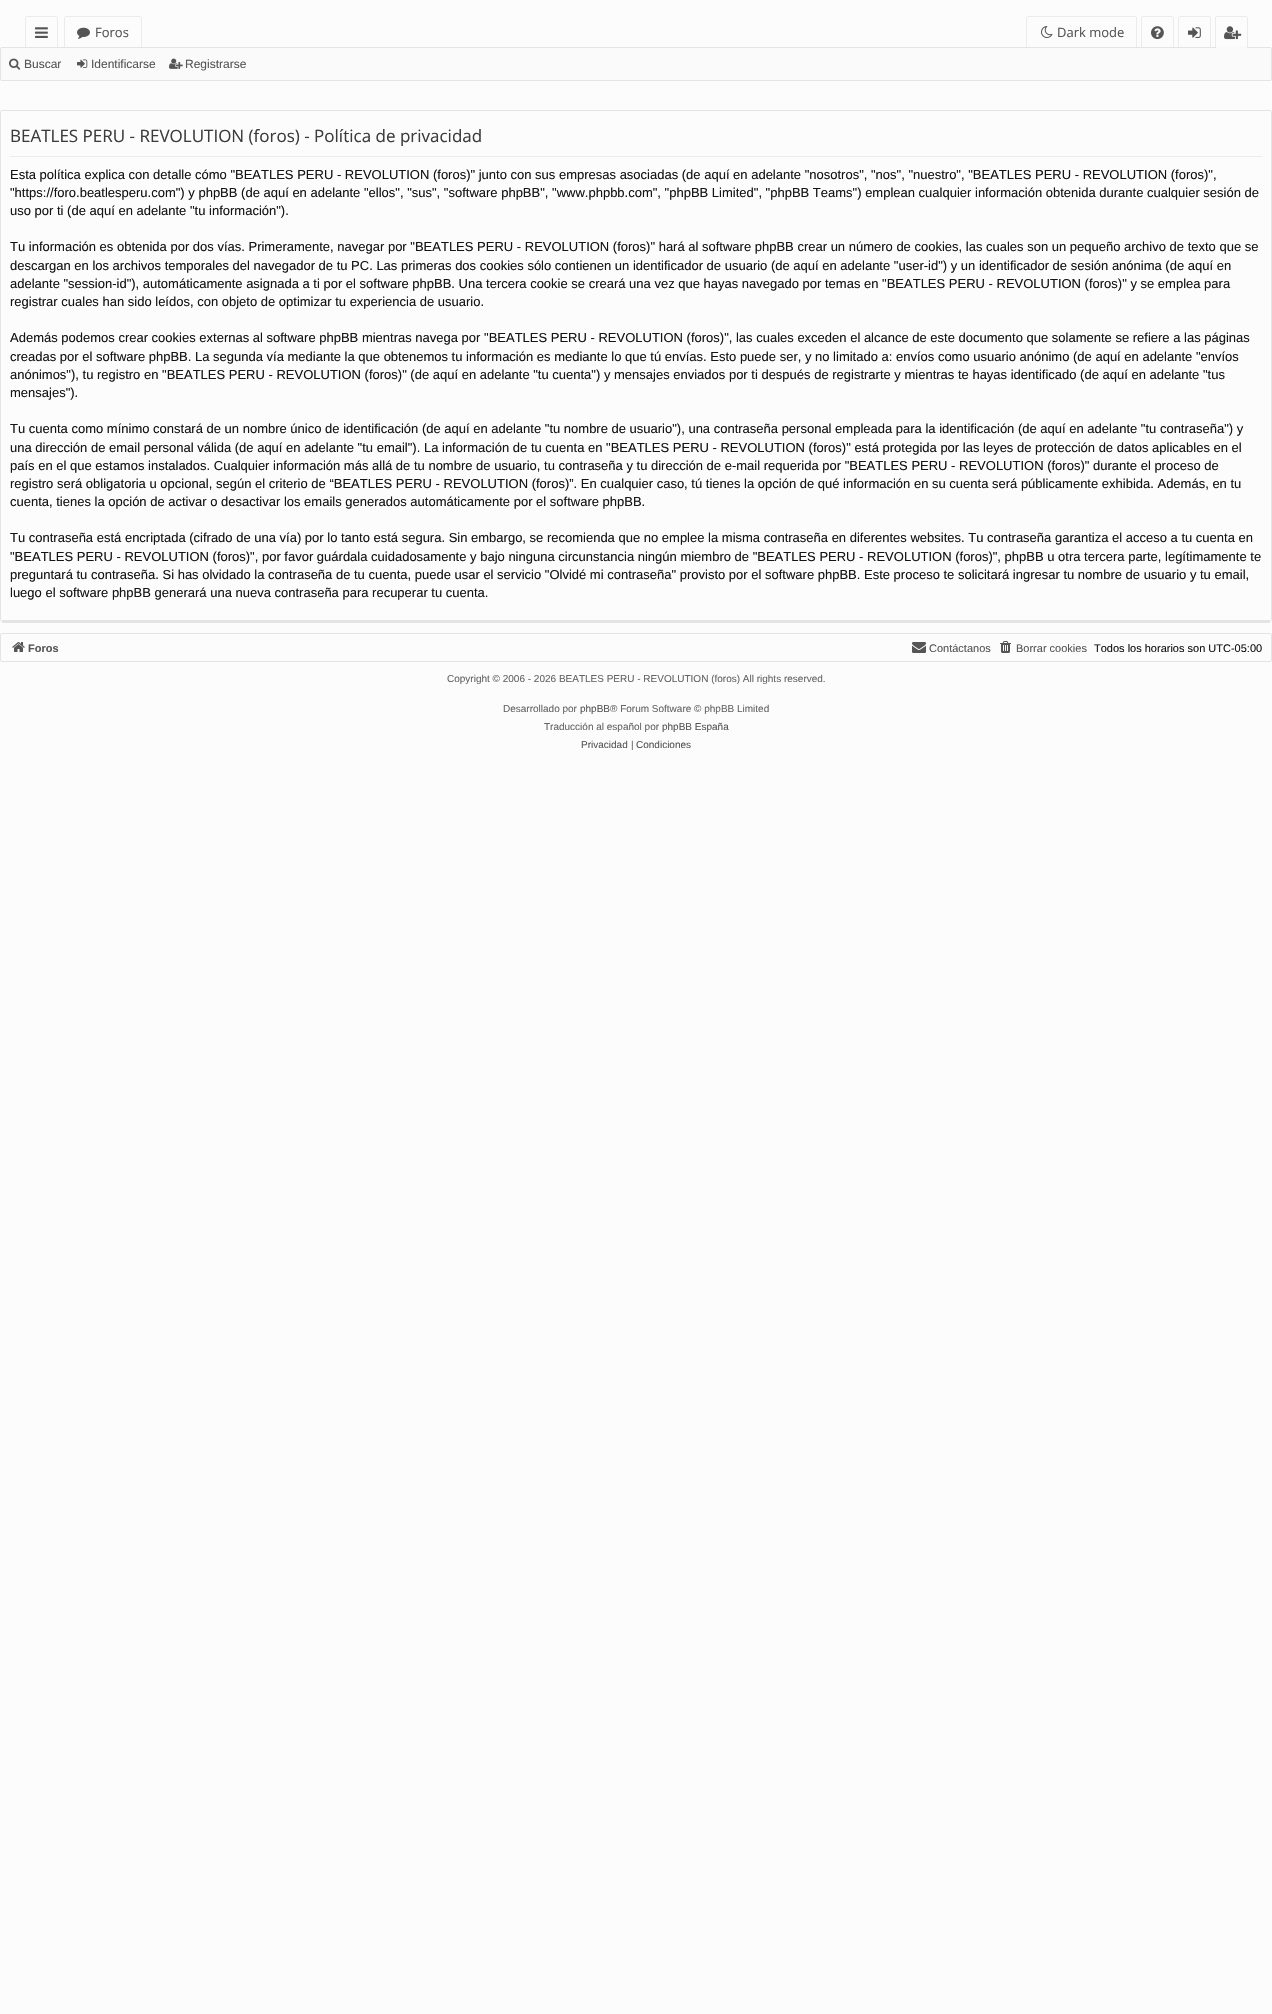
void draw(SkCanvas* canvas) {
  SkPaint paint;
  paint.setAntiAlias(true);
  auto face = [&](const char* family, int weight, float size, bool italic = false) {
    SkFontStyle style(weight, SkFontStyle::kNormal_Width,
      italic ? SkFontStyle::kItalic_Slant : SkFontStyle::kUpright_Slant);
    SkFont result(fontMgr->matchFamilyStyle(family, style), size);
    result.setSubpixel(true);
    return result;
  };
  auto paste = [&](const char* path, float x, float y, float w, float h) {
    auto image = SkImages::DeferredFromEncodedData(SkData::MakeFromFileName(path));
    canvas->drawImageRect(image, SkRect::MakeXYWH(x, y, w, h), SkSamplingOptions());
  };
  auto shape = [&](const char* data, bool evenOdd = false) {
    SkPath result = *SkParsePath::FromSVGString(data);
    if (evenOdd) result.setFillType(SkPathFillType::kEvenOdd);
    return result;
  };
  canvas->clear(0xfffcfcfc);
  {
    const struct { float x, y, w, h; SkColor color; } items[] = {
      {26, 16, 31, 1, 0xffebebeb},
      {57, 17, 1, 31, 0xffebebeb},
      {25, 17, 1, 31, 0xffebebeb},
    };
    for (auto [x, y, w, h, color] : items) {
      paint.setColor(color);
      canvas->drawRect(SkRect::MakeXYWH(x, y, w, h), paint);
    }
  }
  paste("img/1.png", 35, 27, 13, 11);
  {
    const struct { float x, y, w, h; SkColor color; } items[] = {
      {65, 16, 76, 1, 0xffebebeb},
      {141, 17, 1, 31, 0xffebebeb},
      {64, 17, 1, 31, 0xffebebeb},
    };
    for (auto [x, y, w, h, color] : items) {
      paint.setColor(color);
      canvas->drawRect(SkRect::MakeXYWH(x, y, w, h), paint);
    }
  }
  paste("img/2.png", 77, 27, 13, 12);
  {
    const struct { float x, y, w, h; SkColor color; } items[] = {
      {1027, 16, 109, 1, 0xffebebeb},
      {1136, 17, 1, 31, 0xffebebeb},
      {1026, 17, 1, 31, 0xffebebeb},
    };
    for (auto [x, y, w, h, color] : items) {
      paint.setColor(color);
      canvas->drawRect(SkRect::MakeXYWH(x, y, w, h), paint);
    }
  }
  paste("img/3.png", 1041, 26, 12, 12);
  {
    const struct { float x, y, w, h; SkColor color; } items[] = {
      {1142, 16, 31, 1, 0xffebebeb},
      {1173, 17, 1, 31, 0xffebebeb},
      {1141, 17, 1, 31, 0xffebebeb},
    };
    for (auto [x, y, w, h, color] : items) {
      paint.setColor(color);
      canvas->drawRect(SkRect::MakeXYWH(x, y, w, h), paint);
    }
  }
  paste("img/4.png", 1151, 26, 13, 14);
  {
    const struct { float x, y, w, h; SkColor color; } items[] = {
      {1179, 16, 31, 1, 0xffebebeb},
      {1210, 17, 1, 31, 0xffebebeb},
      {1178, 17, 1, 31, 0xffebebeb},
    };
    for (auto [x, y, w, h, color] : items) {
      paint.setColor(color);
      canvas->drawRect(SkRect::MakeXYWH(x, y, w, h), paint);
    }
  }
  paste("img/5.png", 1188, 27, 13, 11);
  {
    const struct { float x, y, w, h; SkColor color; } items[] = {
      {1216, 16, 31, 1, 0xffebebeb},
      {1247, 17, 1, 31, 0xffebebeb},
      {1215, 17, 1, 31, 0xffebebeb},
    };
    for (auto [x, y, w, h, color] : items) {
      paint.setColor(color);
      canvas->drawRect(SkRect::MakeXYWH(x, y, w, h), paint);
    }
  }
  paste("img/6.png", 1224, 26, 18, 14);
  paint.setColor(0xfffafafa);
  canvas->drawRoundRect(SkRect::MakeXYWH(0.5f, 47.5f, 1271, 33), 1.5f, 1.5f, paint);
  paint.setStroke(true);
  paint.setStrokeWidth(1);
  paint.setColor(0xffe4e4e4);
  canvas->drawRoundRect(SkRect::MakeXYWH(0.5f, 47.5f, 1271, 33), 1.5f, 1.5f, paint);
  paint.setStroke(false);
  paint.setColor(0xfffafafa);
  canvas->drawPath(shape("M1218 46H1245C1246 46 1247 47 1247 48V50H1216V48C1216 47 1217 46 1218 46Z"), paint);
  paste("img/7.png", 9, 58, 12, 12);
  paste("img/8.png", 77, 59, 11, 9);
  paste("img/9.png", 169, 58, 14, 11);
  paint.setStroke(true);
  paint.setColor(0xffe4e4e4);
  canvas->drawPath(shape("M2 110.5H1270C1271 110.5 1271.5 111 1271.5 112V619C1271.5 621 1270 622.5 1268 622.5H4C2 622.5 .5 621 .5 619V112C.5 111 1 110.5 2 110.5Z"), paint);
  paint.setStroke(false);
  canvas->drawRect(SkRect::MakeXYWH(2, 620, 1268, 2), paint);
  paint.setColor(0xffebebeb);
  canvas->drawRect(SkRect::MakeXYWH(10, 156, 1252, 1), paint);
  paint.setStroke(true);
  paint.setColor(0xffe4e4e4);
  canvas->drawRoundRect(SkRect::MakeXYWH(0.5f, 633.5f, 1271, 28), 1.5f, 1.5f, paint);
  paste("img/10.png", 12, 642, 13, 10);
  paste("img/11.png", 912, 642, 14, 11);
  paste("img/12.png", 1000, 641, 11, 12);
  auto f0 = face("Open Sans", 400, 13);
  paint.setStroke(false);
  paint.setColor(0xff555555);
  canvas->drawString("Foros", 95, 37, f0, paint);
  canvas->drawString("Dark mode", 1057, 37, f0, paint);
  auto f1 = face("Liberation Sans", 400, 12);
  {
    const struct { const char* s; float x, y; } items[] = {
      {"Buscar", 24, 68},
      {"Identificarse", 91, 68},
      {"Registrarse", 185, 68},
    };
    for (auto [s, x, y] : items) {
      canvas->drawString(s, x, y, f1, paint);
    }
  }
  auto f2 = face("Open Sans", 400, 17);
  paint.setColor(0xff3c3c3c);
  canvas->drawString("BEATLES PERU - REVOLUTION (foros) - Política de privacidad", 10, 142, f2, paint);
  auto f3 = face("Liberation Sans", 400, 13);
  paint.setColor(0xff141414);
  {
    const struct { const char* s; float x, y; } items[] = {
      {"Esta política explica con detalle cómo \"BEATLES PERU - REVOLUTION (foros)\" junto con sus empresas asociadas (de aquí en adelante \"nosotros\", \"nos\", \"nuestro\", \"BEATLES PERU - REVOLUTION (foros)\",", 10, 179},
      {"\"https://foro.beatlesperu.com\") y phpBB (de aquí en adelante \"ellos\", \"sus\", \"software phpBB\", \"www.phpbb.com\", \"phpBB Limited\", \"phpBB Teams\") emplean cualquier información obtenida durante cualquier sesión de", 10, 197},
      {"uso por ti (de aquí en adelante \"tu información\").", 10, 215},
      {"Tu información es obtenida por dos vías. Primeramente, navegar por \"BEATLES PERU - REVOLUTION (foros)\" hará al software phpBB crear un número de cookies, las cuales son un pequeño archivo de texto que se", 10, 251},
      {"descargan en los archivos temporales del navegador de tu PC. Las primeras dos cookies sólo contienen un identificador de usuario (de aquí en adelante \"user-id\") y un identificador de sesión anónima (de aquí en", 10, 270},
      {"adelante \"session-id\"), automáticamente asignada a ti por el software phpBB. Una tercera cookie se creará una vez que hayas navegado por temas en \"BEATLES PERU - REVOLUTION (foros)\" y se emplea para", 10, 288},
      {"registrar cuales han sido leídos, con objeto de optimizar tu experiencia de usuario.", 10, 306},
      {"Además podemos crear cookies externas al software phpBB mientras navega por \"BEATLES PERU - REVOLUTION (foros)\", las cuales exceden el alcance de este documento que solamente se refiere a las páginas", 10, 342},
      {"creadas por el software phpBB. La segunda vía mediante la que obtenemos tu información es mediante lo que tú envías. Esto puede ser, y no limitado a: envíos como usuario anónimo (de aquí en adelante \"envíos", 10, 361},
      {"anónimos\"), tu registro en \"BEATLES PERU - REVOLUTION (foros)\" (de aquí en adelante \"tu cuenta\") y mensajes enviados por ti después de registrarte y mientras te hayas identificado (de aquí en adelante \"tus", 10, 379},
      {"mensajes\").", 10, 397},
      {"Tu cuenta como mínimo constará de un nombre único de identificación (de aquí en adelante \"tu nombre de usuario\"), una contraseña personal empleada para la identificación (de aquí en adelante \"tu contraseña\") y", 10, 433},
      {"una dirección de email personal válida (de aquí en adelante \"tu email\"). La información de tu cuenta en \"BEATLES PERU - REVOLUTION (foros)\" está protegida por las leyes de protección de datos aplicables en el", 10, 452},
      {"país en el que estamos instalados. Cualquier información más allá de tu nombre de usuario, tu contraseña y tu dirección de e-mail requerida por \"BEATLES PERU - REVOLUTION (foros)\" durante el proceso de", 10, 470},
      {"registro será obligatoria u opcional, según el criterio de “BEATLES PERU - REVOLUTION (foros)”. En cualquier caso, tú tienes la opción de qué información en su cuenta será públicamente exhibida. Además, en tu", 10, 488},
      {"cuenta, tienes la opción de activar o desactivar los emails generados automáticamente por el software phpBB.", 10, 506},
      {"Tu contraseña está encriptada (cifrado de una vía) por lo tanto está segura. Sin embargo, se recomienda que no emplee la misma contraseña en diferentes websites. Tu contraseña garantiza el acceso a tu cuenta en", 10, 542},
      {"\"BEATLES PERU - REVOLUTION (foros)\", por favor guárdala cuidadosamente y bajo ninguna circunstancia ningún miembro de \"BEATLES PERU - REVOLUTION (foros)\", phpBB u otra tercera parte, legítimamente te", 10, 561},
      {"preguntará tu contraseña. Si has olvidado la contraseña de tu cuenta, puede usar el servicio \"Olvidé mi contraseña\" provisto por el software phpBB. Este proceso te solicitará ingresar tu nombre de usuario y tu email,", 10, 579},
      {"luego el software phpBB generará una nueva contraseña para recuperar tu cuenta.", 10, 597},
    };
    for (auto [s, x, y] : items) {
      canvas->drawString(s, x, y, f3, paint);
    }
  }
  auto f4 = face("Liberation Sans", 700, 11);
  paint.setColor(0xff555555);
  canvas->drawString("Foros", 28, 652, f4, paint);
  auto f5 = face("Liberation Sans", 400, 11);
  canvas->drawString("Contáctanos", 929, 652, f5, paint);
  canvas->drawString("Borrar cookies", 1016, 652, f5, paint);
  paint.setColor(0xff141414);
  canvas->drawString("Todos los horarios son UTC-05:00", 1094, 652, f5, paint);
  auto f6 = face("Liberation Sans", 400, 10);
  paint.setColor(0xff656565);
  canvas->drawString("Copyright © 2006 - 2026 BEATLES PERU - REVOLUTION (foros) All rights reserved.", 447, 682, f6, paint);
  canvas->drawString("Desarrollado por", 503, 712, f6, paint);
  paint.setColor(0xff555555);
  canvas->drawString("phpBB", 580, 712, f6, paint);
  paint.setColor(0xff656565);
  canvas->drawString("® Forum Software © phpBB Limited", 610, 712, f6, paint);
  canvas->drawString("Traducción al español por", 544, 730, f6, paint);
  paint.setColor(0xff555555);
  canvas->drawString("phpBB España", 662, 730, f6, paint);
  canvas->drawString("Privacidad", 581, 748, f6, paint);
  paint.setColor(0xff656565);
  canvas->drawString("|", 631, 748, f6, paint);
  paint.setColor(0xff555555);
  canvas->drawString("Condiciones", 636, 748, f6, paint);
}
